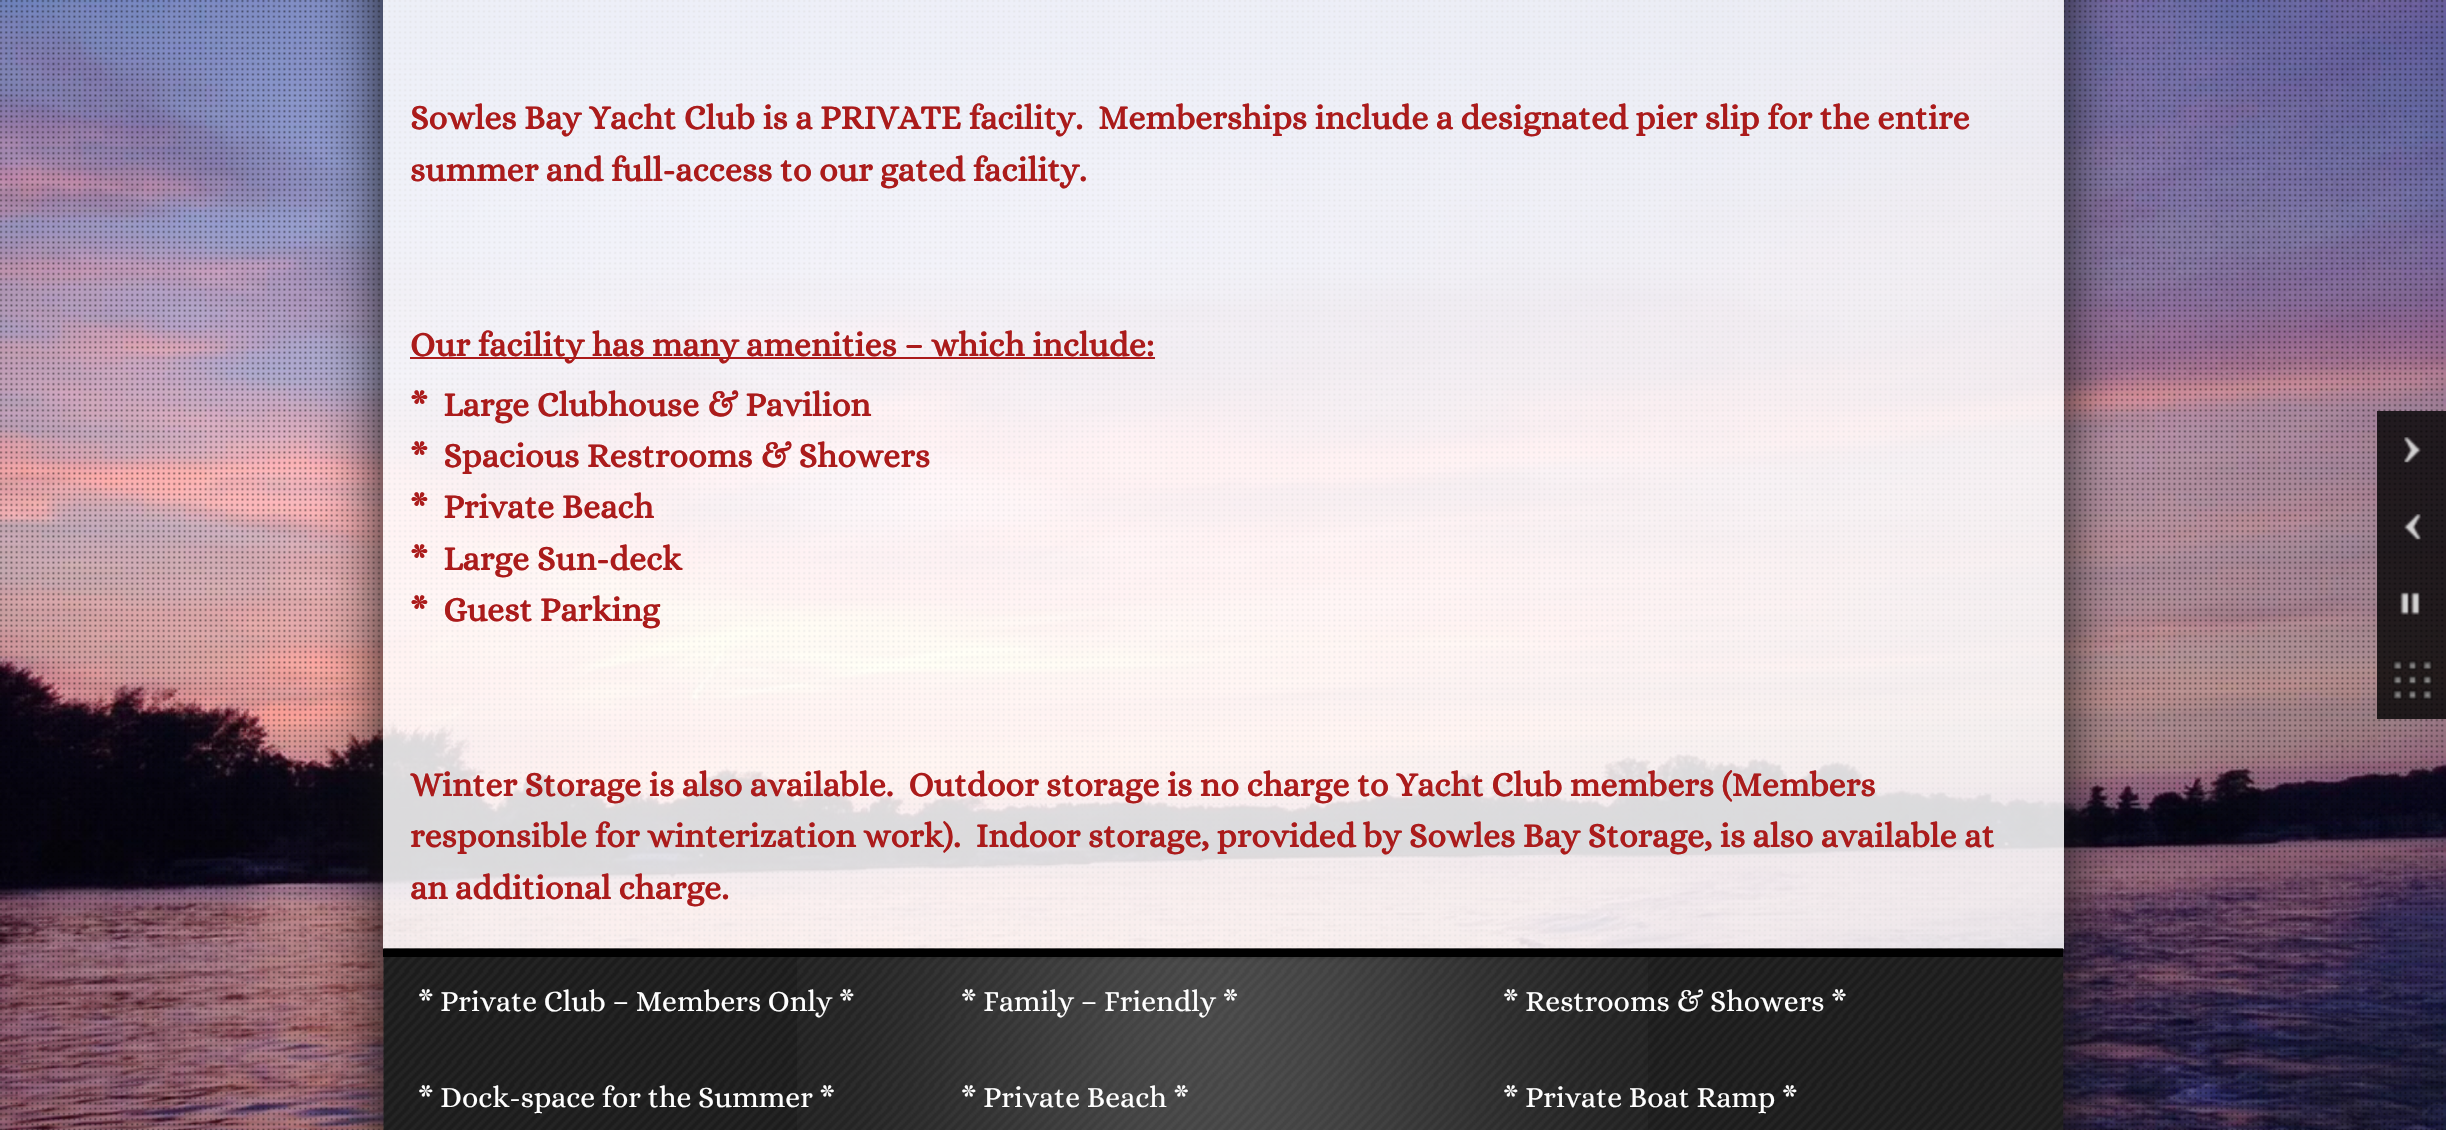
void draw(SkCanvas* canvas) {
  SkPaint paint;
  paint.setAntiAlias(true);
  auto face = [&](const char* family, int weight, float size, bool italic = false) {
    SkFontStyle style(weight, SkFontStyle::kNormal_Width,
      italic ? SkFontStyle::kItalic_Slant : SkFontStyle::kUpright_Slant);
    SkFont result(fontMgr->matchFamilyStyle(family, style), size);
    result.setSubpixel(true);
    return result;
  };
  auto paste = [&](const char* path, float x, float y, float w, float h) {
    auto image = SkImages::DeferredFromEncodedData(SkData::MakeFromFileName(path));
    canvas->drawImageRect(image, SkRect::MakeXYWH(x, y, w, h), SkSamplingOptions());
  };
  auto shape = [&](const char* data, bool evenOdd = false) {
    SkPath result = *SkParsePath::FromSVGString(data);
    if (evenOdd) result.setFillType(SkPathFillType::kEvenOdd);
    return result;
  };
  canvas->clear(0xffffffff);
  paste("img/1.png", 0, 0, 2446, 1130);
  paste("img/2.png", 0, 0, 2444, 1130);
  canvas->save();
  canvas->clipPath(shape("M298 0H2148V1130H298ZM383-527H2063V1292H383Z", true), true);
  paint.setColor(0xff111111);
  paint.setMaskFilter(SkMaskFilter::MakeBlur(kNormal_SkBlurStyle, 28));
  canvas->drawRect(SkRect::MakeXYWH(383, -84, 1680, 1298), paint);
  paint.setMaskFilter(nullptr);
  canvas->restore();
  paint.setColor(0xd9ffffff);
  canvas->drawRect(SkRect::MakeXYWH(383, 0, 1681, 949), paint);
  paint.setColor(0xffab1b1b);
  canvas->drawRect(SkRect::MakeXYWH(410, 357, 745, 2), paint);
  paste("img/3.png", 383, 948, 1681, 182);
  paste("img/4.png", 797, 957, 851, 173);
  paint.setColor(0xff000000);
  canvas->drawRect(SkRect::MakeXYWH(383, 949, 1680, 8), paint);
  paint.setColor(0xcc000000);
  canvas->drawRect(SkRect::MakeXYWH(2377, 411, 69, 77), paint);
  paste("img/5.png", 2404, 437, 17, 26);
  canvas->drawRect(SkRect::MakeXYWH(2377, 488, 69, 77), paint);
  paste("img/6.png", 2404, 514, 17, 26);
  canvas->drawRect(SkRect::MakeXYWH(2377, 565, 69, 77), paint);
  paste("img/7.png", 2400, 592, 20, 23);
  canvas->drawRect(SkRect::MakeXYWH(2377, 642, 69, 77), paint);
  paste("img/8.png", 2392, 659, 41, 41);
  auto f0 = face("Alice", 700, 34.1f);
  paint.setColor(0xffab1b1b);
  {
    const struct { const char* s; float x, y; } items[] = {
      {"Sowles Bay Yacht Club is a PRIVATE facility.  Memberships include a designated pier slip for the entire", 410, 129},
      {"summer and full-access to our gated facility.", 410, 181},
      {"Our facility has many amenities – which include:", 410, 356},
      {"*  Large Clubhouse & Pavilion", 410, 416},
      {"*  Spacious Restrooms & Showers", 410, 467},
      {"*  Private Beach", 410, 518},
      {"*  Large Sun-deck", 410, 570},
      {"*  Guest Parking", 410, 621},
      {"Winter Storage is also available.  Outdoor storage is no charge to Yacht Club members (Members", 410, 796},
      {"responsible for winterization work).  Indoor storage, provided by Sowles Bay Storage, is also available at", 410, 847},
      {"an additional charge.", 410, 899},
    };
    for (auto [s, x, y] : items) {
      canvas->drawString(s, x, y, f0, paint);
    }
  }
  auto f1 = face("Alice", 400, 29.75f);
  paint.setColor(0xffffffff);
  {
    const struct { const char* s; float x, y; } items[] = {
      {"* Private Club – Members Only *", 418, 1011},
      {"* Dock-space for the Summer *", 418, 1107},
      {"* Family – Friendly *", 961, 1011},
      {"* Private Beach *", 961, 1107},
      {"* Restrooms & Showers *", 1503, 1011},
      {"* Private Boat Ramp *", 1503, 1107},
    };
    for (auto [s, x, y] : items) {
      canvas->drawString(s, x, y, f1, paint);
    }
  }
}
